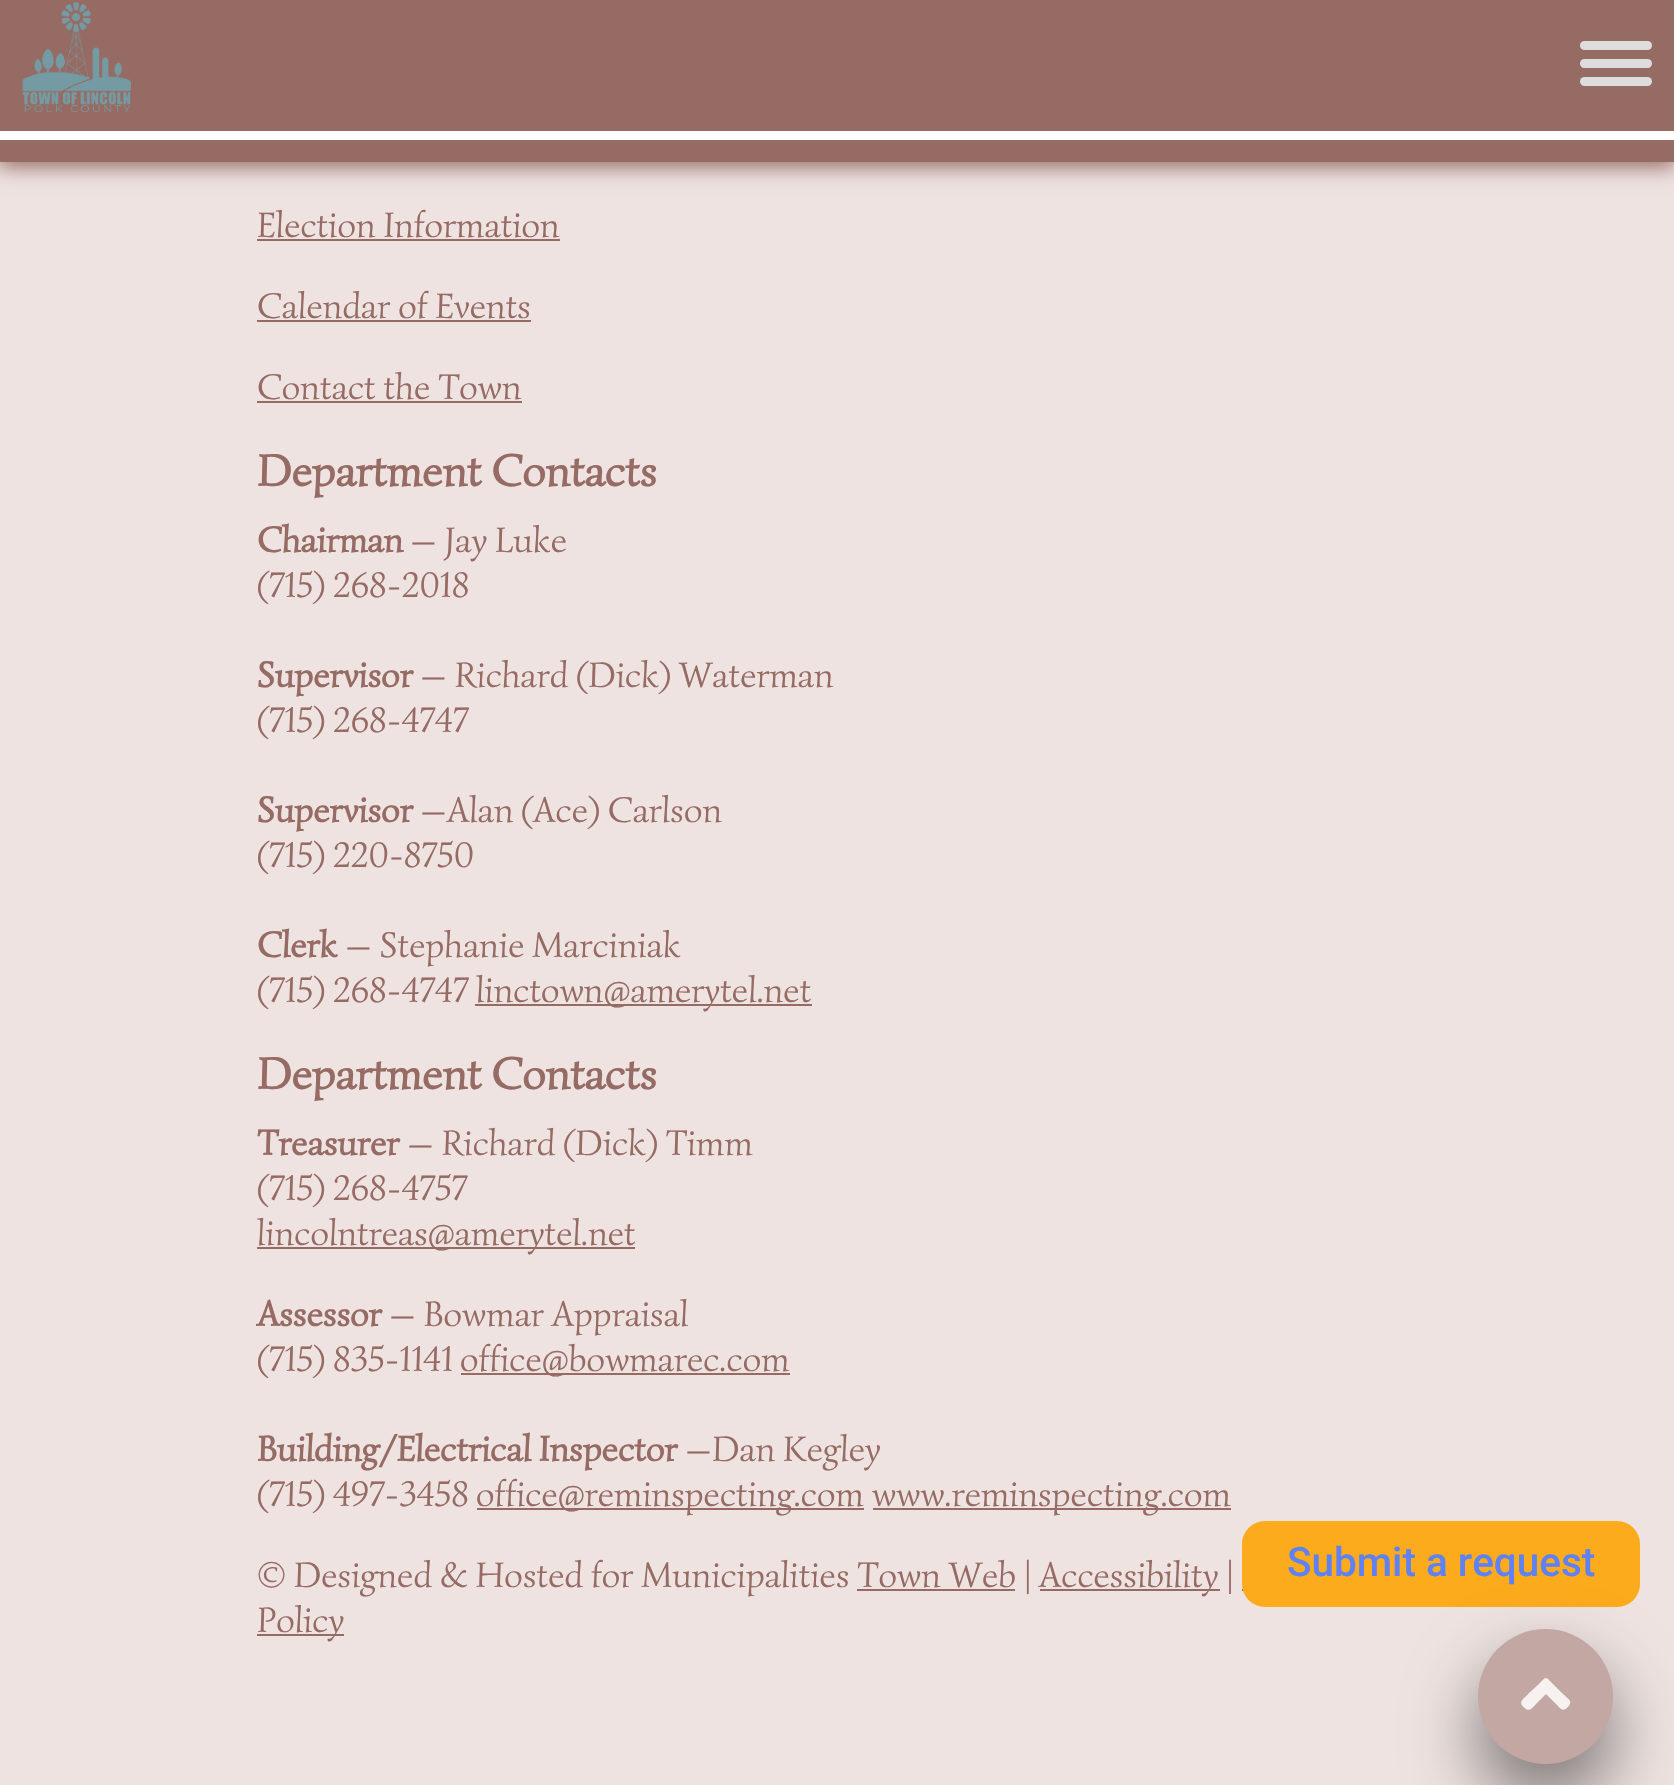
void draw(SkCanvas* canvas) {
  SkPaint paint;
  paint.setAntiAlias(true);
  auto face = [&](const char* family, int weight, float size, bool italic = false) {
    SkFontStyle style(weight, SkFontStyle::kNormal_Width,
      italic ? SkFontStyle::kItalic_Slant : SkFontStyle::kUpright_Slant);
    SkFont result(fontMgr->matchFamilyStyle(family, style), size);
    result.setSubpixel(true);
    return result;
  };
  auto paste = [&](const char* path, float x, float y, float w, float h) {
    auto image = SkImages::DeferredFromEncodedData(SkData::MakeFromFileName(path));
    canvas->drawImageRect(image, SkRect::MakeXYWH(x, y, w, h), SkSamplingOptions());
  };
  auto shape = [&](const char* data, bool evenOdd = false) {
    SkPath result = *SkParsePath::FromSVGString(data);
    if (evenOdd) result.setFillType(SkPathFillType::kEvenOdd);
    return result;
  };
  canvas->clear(0xffeee3e1);
  paint.setColor(0xff966b64);
  paint.setMaskFilter(SkMaskFilter::MakeBlur(kNormal_SkBlurStyle, 10));
  canvas->drawRect(SkRect::MakeXYWH(-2, 0, 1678, 167), paint);
  paint.setMaskFilter(nullptr);
  canvas->drawRect(SkRect::MakeXYWH(0, 0, 1674, 162), paint);
  paste("img/1.png", 22, 2, 109, 110);
  paint.setColor(0xffdddddd);
  canvas->drawRoundRect(SkRect::MakeXYWH(1580, 41, 72, 9), 4.5f, 4.5f, paint);
  canvas->drawRoundRect(SkRect::MakeXYWH(1580, 59, 72, 9), 4.5f, 4.5f, paint);
  canvas->drawRoundRect(SkRect::MakeXYWH(1580, 77, 72, 9), 4.5f, 4.5f, paint);
  {
    const struct { float x, y, w, h; SkColor color; } items[] = {
      {0, 131, 1674, 9, 0xffffffff},
      {257, 239, 303, 2, 0xff966b64},
      {257, 320, 274, 2, 0xff966b64},
      {257, 401, 265, 2, 0xff966b64},
      {475, 1004, 337, 2, 0xff966b64},
      {257, 1247, 378, 2, 0xff966b64},
      {461, 1373, 329, 2, 0xff966b64},
      {477, 1508, 387, 2, 0xff966b64},
      {873, 1508, 358, 2, 0xff966b64},
      {1040, 1589, 180, 2, 0xff966b64},
      {857, 1589, 158, 2, 0xff966b64},
      {1242, 1589, 2, 2, 0xff966b64},
      {257, 1634, 87, 2, 0xff966b64},
    };
    for (auto [x, y, w, h, color] : items) {
      paint.setColor(color);
      canvas->drawRect(SkRect::MakeXYWH(x, y, w, h), paint);
    }
  }
  paint.setColor(0xfffcab1c);
  canvas->drawRoundRect(SkRect::MakeXYWH(1242, 1521, 398, 86), 23, 23, paint);
  paint.setColor(0x80000000);
  paint.setMaskFilter(SkMaskFilter::MakeBlur(kNormal_SkBlurStyle, 36));
  canvas->drawRoundRect(SkRect::MakeXYWH(1478, 1665, 135, 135), 67.5f, 67.5f, paint);
  paint.setMaskFilter(nullptr);
  paint.setColor(0xffc2a7a3);
  canvas->drawCircle(1545.5f, 1696.5f, 67.5f, paint);
  paint.setColor(0xfff7f1f0);
  canvas->drawPath(shape("M1548 1679L1562 1693C1569 1700 1574 1701 1567 1708C1562 1712 1560 1708 1556 1704L1546 1694L1536 1704C1534 1706 1530 1712 1526 1709C1517 1702 1522 1701 1529 1693L1540 1683C1542 1681 1545 1676 1548 1679Z"), paint);
  auto f0 = face("Simonetta", 400, 36);
  paint.setColor(0xff966b64);
  {
    const struct { const char* s; float x, y; } items[] = {
      {"Election Information", 257, 237},
      {"Calendar of Events", 257, 318},
      {"Contact the Town", 257, 399},
    };
    for (auto [s, x, y] : items) {
      canvas->drawString(s, x, y, f0, paint);
    }
  }
  auto f1 = face("Simonetta", 700, 45);
  canvas->drawString("Department Contacts", 257, 486, f1, paint);
  auto f2 = face("Simonetta", 700, 36);
  canvas->drawString("Chairman", 257, 552, f2, paint);
  canvas->drawString("— Jay Luke", 410, 552, f0, paint);
  canvas->drawString("(715) 268-2018", 257, 597, f0, paint);
  canvas->drawString("Supervisor", 257, 687, f2, paint);
  canvas->drawString("— Richard (Dick) Waterman", 420, 687, f0, paint);
  canvas->drawString("(715) 268-4747", 257, 732, f0, paint);
  canvas->drawString("Supervisor", 257, 822, f2, paint);
  canvas->drawString("—Alan (Ace) Carlson", 420, 822, f0, paint);
  canvas->drawString("(715) 220-8750", 257, 867, f0, paint);
  canvas->drawString("Clerk", 257, 957, f2, paint);
  {
    const struct { const char* s; float x, y; } items[] = {
      {"— Stephanie Marciniak", 345, 957},
      {"(715) 268-4747", 257, 1002},
      {"linctown@amerytel.net", 476, 1002},
    };
    for (auto [s, x, y] : items) {
      canvas->drawString(s, x, y, f0, paint);
    }
  }
  canvas->drawString("Department Contacts", 257, 1089, f1, paint);
  canvas->drawString("Treasurer", 257, 1155, f2, paint);
  {
    const struct { const char* s; float x, y; } items[] = {
      {"— Richard (Dick) Timm", 407, 1155},
      {"(715) 268-4757", 257, 1200},
      {"lincolntreas@amerytel.net", 257, 1245},
    };
    for (auto [s, x, y] : items) {
      canvas->drawString(s, x, y, f0, paint);
    }
  }
  canvas->drawString("Assessor", 257, 1326, f2, paint);
  {
    const struct { const char* s; float x, y; } items[] = {
      {"— Bowmar Appraisal", 389, 1326},
      {"(715) 835-1141", 257, 1371},
      {"office@bowmarec.com", 460, 1371},
    };
    for (auto [s, x, y] : items) {
      canvas->drawString(s, x, y, f0, paint);
    }
  }
  canvas->drawString("Building/Electrical Inspector", 257, 1461, f2, paint);
  {
    const struct { const char* s; float x, y; } items[] = {
      {"—Dan Kegley", 685, 1461},
      {"(715) 497-3458", 257, 1506},
      {"office@reminspecting.com", 476, 1506},
      {"www.reminspecting.com", 872, 1506},
      {"© Designed & Hosted for Municipalities Town Web |", 257, 1587},
      {"Accessibility |", 1039, 1587},
      {"Policy", 257, 1632},
    };
    for (auto [s, x, y] : items) {
      canvas->drawString(s, x, y, f0, paint);
    }
  }
  auto f3 = face("Roboto", 500, 40.5f);
  paint.setColor(0xff5e81f4);
  canvas->drawString("Submit a request", 1287, 1576, f3, paint);
}
